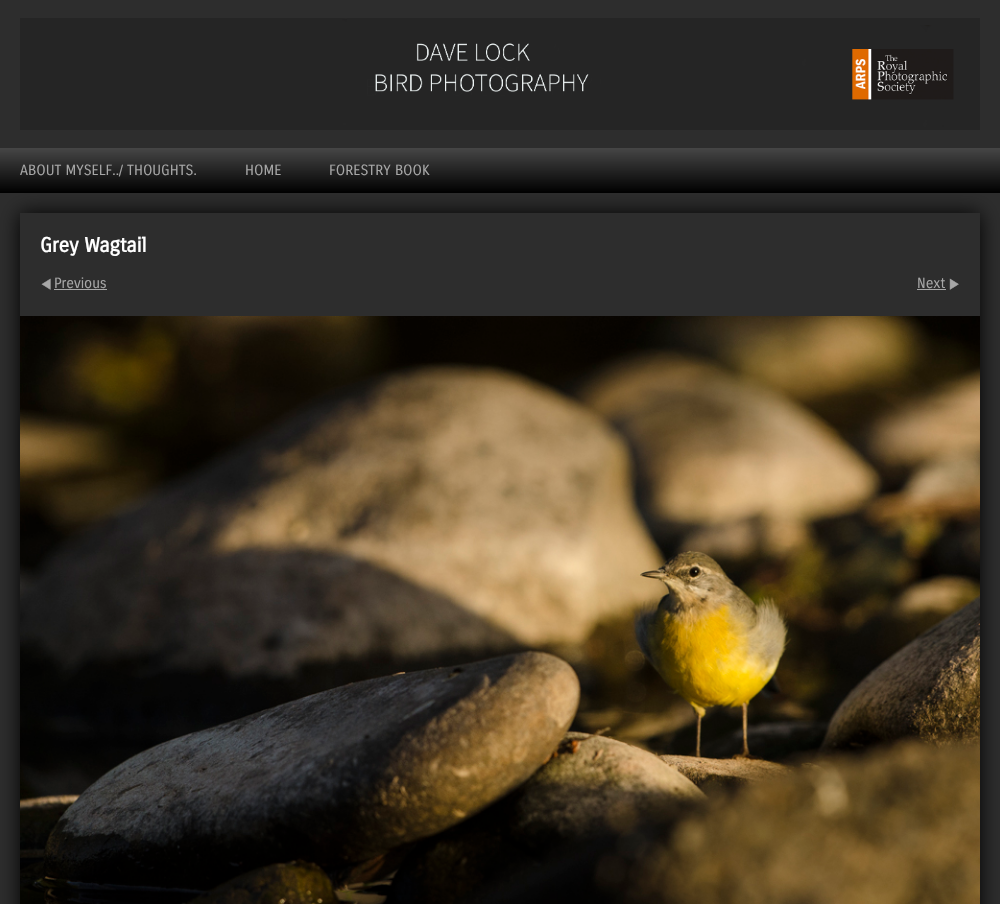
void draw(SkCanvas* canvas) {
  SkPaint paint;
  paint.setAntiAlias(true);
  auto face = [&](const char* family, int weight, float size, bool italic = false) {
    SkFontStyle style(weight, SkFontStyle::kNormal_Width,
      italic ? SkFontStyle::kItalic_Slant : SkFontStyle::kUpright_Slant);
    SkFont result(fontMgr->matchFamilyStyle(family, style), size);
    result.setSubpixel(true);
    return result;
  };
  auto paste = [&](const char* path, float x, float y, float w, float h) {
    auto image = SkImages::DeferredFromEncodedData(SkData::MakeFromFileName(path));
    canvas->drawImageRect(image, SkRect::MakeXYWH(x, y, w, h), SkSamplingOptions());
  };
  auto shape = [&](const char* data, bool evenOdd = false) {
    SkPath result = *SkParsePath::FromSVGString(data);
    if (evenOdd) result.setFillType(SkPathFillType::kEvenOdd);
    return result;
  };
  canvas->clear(0xff2d2d2d);
  paste("img/1.png", 20, 18, 960, 112);
  {
    const SkColor colors[] = {0xff464646, 0xff000000};
    const float stops[] = {0, 1};
    const SkPoint ends[] = {{500, 148}, {500, 193}};
    paint.setShader(SkGradientShader::MakeLinear(ends, colors, stops, 2, SkTileMode::kClamp));
    paint.setAlpha(255);
  }
  canvas->drawRect(SkRect::MakeXYWH(0, 148, 1000, 45), paint);
  canvas->save();
  canvas->clipPath(shape("M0 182H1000V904H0ZM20 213H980V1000H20Z", true), true);
  paint.setShader(nullptr);
  paint.setColor(0xff000000);
  paint.setMaskFilter(SkMaskFilter::MakeBlur(kNormal_SkBlurStyle, 10));
  canvas->drawRect(SkRect::MakeXYWH(20, 213, 960, 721), paint);
  paint.setMaskFilter(nullptr);
  canvas->restore();
  paste("img/2.png", 41, 278, 10, 12);
  paint.setColor(0xffa7a7a7);
  canvas->drawRect(SkRect::MakeXYWH(54, 289, 53, 1), paint);
  canvas->drawRect(SkRect::MakeXYWH(917, 289, 29, 1), paint);
  paste("img/3.png", 949, 278, 10, 12);
  paste("img/4.png", 20, 316, 960, 588);
  auto f0 = face("Carrois Gothic", 400, 14.4f);
  {
    const struct { const char* s; float x, y; } items[] = {
      {"ABOUT MYSELF../ THOUGHTS.", 20, 175},
      {"HOME", 245, 175},
      {"FORESTRY BOOK", 329, 175},
    };
    for (auto [s, x, y] : items) {
      canvas->drawString(s, x, y, f0, paint);
    }
  }
  auto f1 = face("Carrois Gothic", 700, 20);
  paint.setColor(0xffffffff);
  canvas->drawString("Grey Wagtail", 40, 252, f1, paint);
  paint.setColor(0xffa7a7a7);
  canvas->drawString("Previous", 54, 288, f0, paint);
  canvas->drawString("Next", 917, 288, f0, paint);
}
